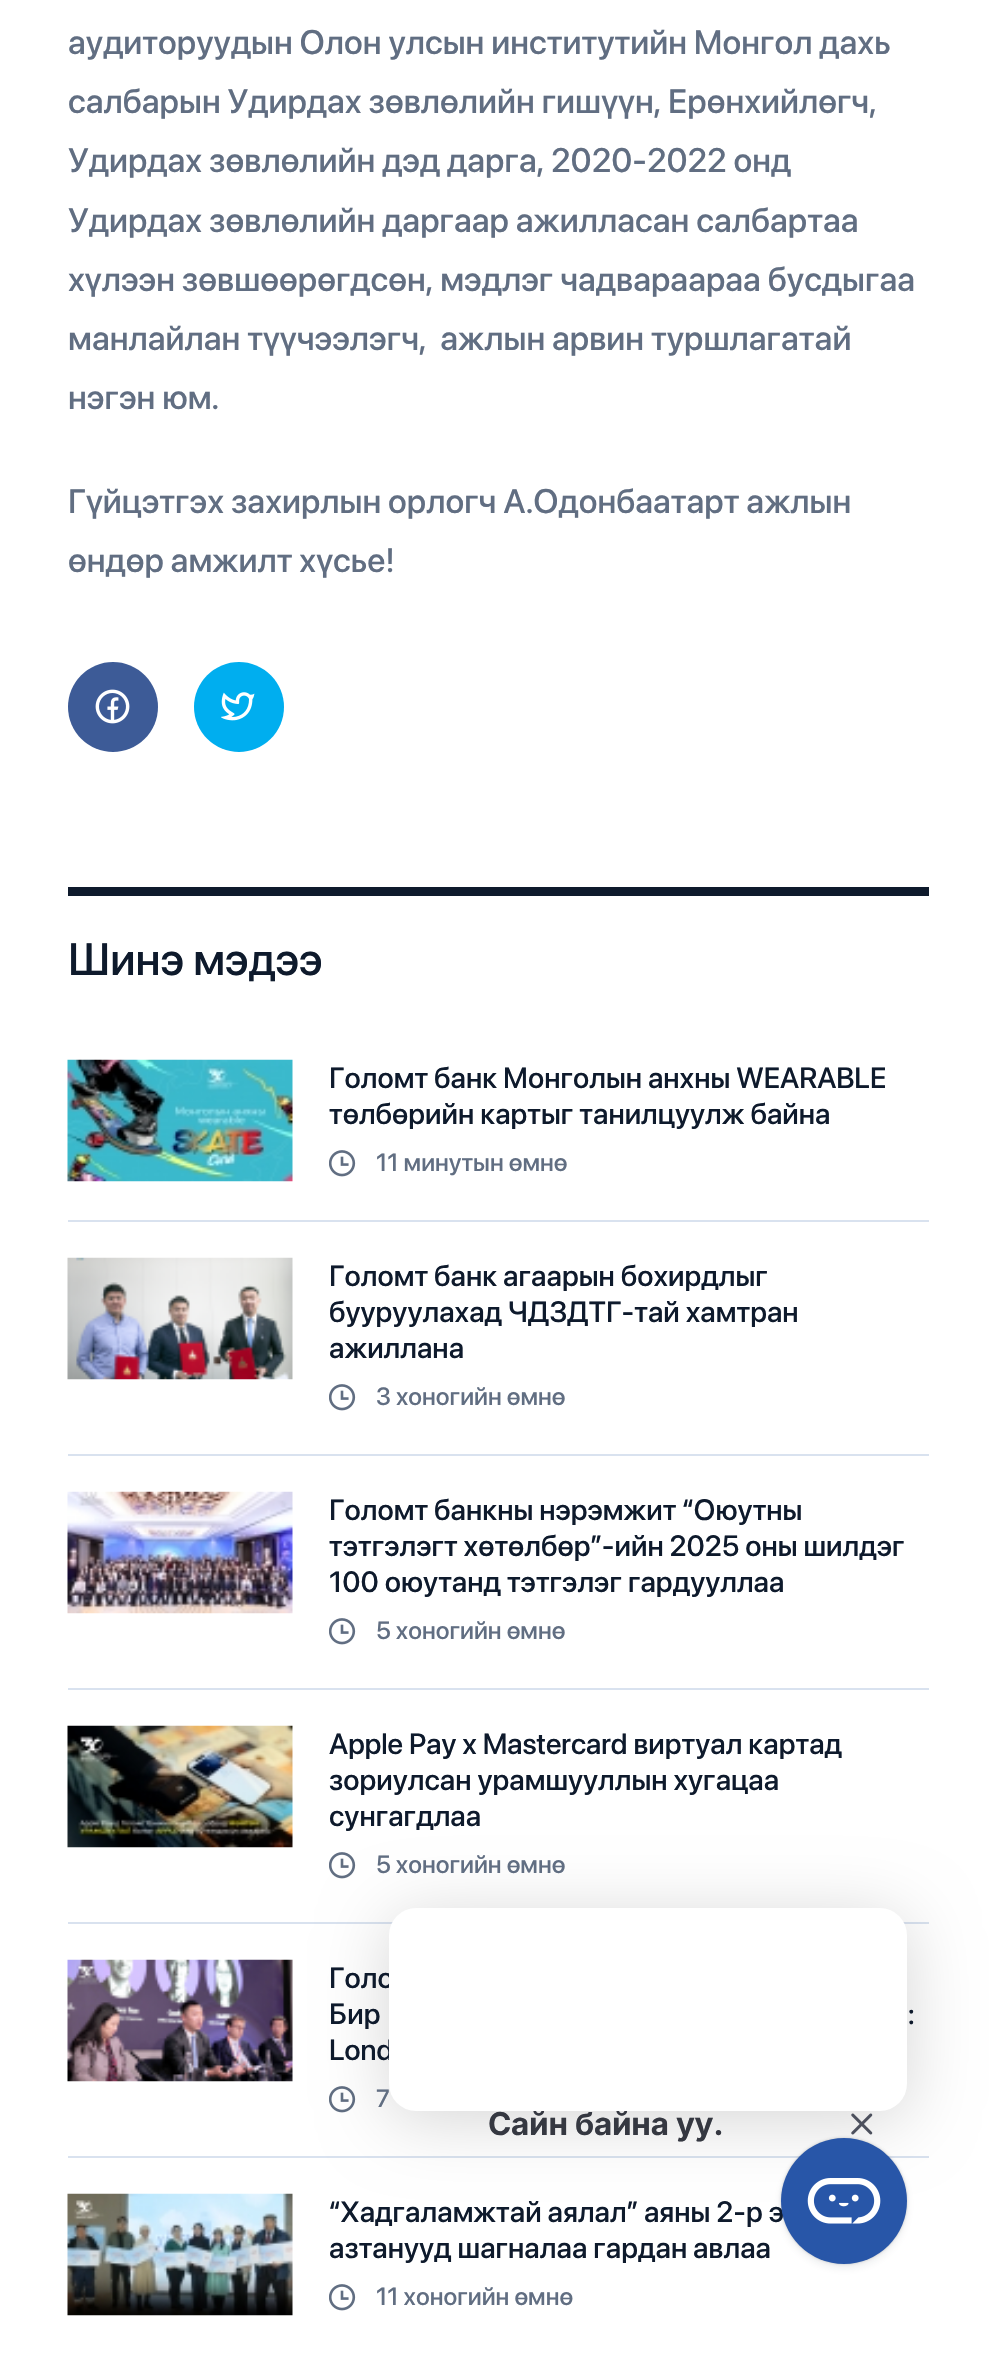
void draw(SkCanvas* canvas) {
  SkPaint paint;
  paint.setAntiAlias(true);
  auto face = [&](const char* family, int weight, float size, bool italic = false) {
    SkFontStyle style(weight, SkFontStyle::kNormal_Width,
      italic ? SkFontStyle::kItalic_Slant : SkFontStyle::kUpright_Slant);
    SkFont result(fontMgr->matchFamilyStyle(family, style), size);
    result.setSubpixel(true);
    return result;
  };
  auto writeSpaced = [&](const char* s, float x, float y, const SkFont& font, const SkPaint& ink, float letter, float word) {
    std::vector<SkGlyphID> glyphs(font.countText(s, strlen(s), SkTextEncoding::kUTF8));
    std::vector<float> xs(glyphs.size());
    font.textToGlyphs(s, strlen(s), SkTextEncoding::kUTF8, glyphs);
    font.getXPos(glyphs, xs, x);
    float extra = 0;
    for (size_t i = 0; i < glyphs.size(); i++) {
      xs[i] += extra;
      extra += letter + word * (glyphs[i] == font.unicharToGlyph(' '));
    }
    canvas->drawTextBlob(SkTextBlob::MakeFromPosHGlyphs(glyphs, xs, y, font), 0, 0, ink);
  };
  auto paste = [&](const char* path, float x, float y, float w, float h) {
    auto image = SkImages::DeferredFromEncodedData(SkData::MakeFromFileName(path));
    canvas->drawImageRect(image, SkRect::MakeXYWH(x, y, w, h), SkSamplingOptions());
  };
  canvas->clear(0xffffffff);
  paint.setColor(0xff3d5b97);
  canvas->drawCircle(113, 707, 45, paint);
  paste("img/1.png", 95, 689, 35, 35);
  paint.setColor(0xff00aeef);
  canvas->drawCircle(239, 707, 45, paint);
  paste("img/2.png", 221, 692, 34, 29);
  paint.setColor(0xff0e1a2c);
  canvas->drawRect(SkRect::MakeXYWH(68, 887, 861, 9), paint);
  paint.setColor(0xffd9e2ef);
  canvas->drawRect(SkRect::MakeXYWH(68, 1220, 861, 2), paint);
  paste("img/3.png", 67, 1059, 226, 123);
  paste("img/4.png", 329, 1150, 27, 27);
  canvas->drawRect(SkRect::MakeXYWH(68, 1454, 861, 2), paint);
  paste("img/5.png", 67, 1257, 226, 123);
  paste("img/4.png", 329, 1384, 27, 27);
  canvas->drawRect(SkRect::MakeXYWH(68, 1688, 861, 2), paint);
  paste("img/6.png", 67, 1491, 226, 123);
  paste("img/4.png", 329, 1618, 27, 27);
  canvas->drawRect(SkRect::MakeXYWH(68, 1922, 861, 2), paint);
  paste("img/7.png", 67, 1725, 226, 123);
  paste("img/4.png", 329, 1852, 27, 27);
  canvas->drawRect(SkRect::MakeXYWH(68, 2156, 861, 2), paint);
  paste("img/8.png", 67, 1959, 226, 123);
  paste("img/4.png", 329, 2086, 27, 27);
  paste("img/9.png", 67, 2193, 226, 123);
  paste("img/4.png", 329, 2284, 27, 27);
  paint.setColor(0x29000000);
  paint.setMaskFilter(SkMaskFilter::MakeBlur(kNormal_SkBlurStyle, 34));
  canvas->drawRoundRect(SkRect::MakeXYWH(389, 1917, 518, 203), 27, 27, paint);
  paint.setMaskFilter(nullptr);
  paste("img/10.png", 851, 2113, 22, 22);
  paint.setColor(0x331d212d);
  paint.setMaskFilter(SkMaskFilter::MakeBlur(kNormal_SkBlurStyle, 1));
  canvas->drawRoundRect(SkRect::MakeXYWH(781, 2138, 126, 126), 63, 63, paint);
  paint.setMaskFilter(nullptr);
  paint.setColor(0x141d212d);
  paint.setMaskFilter(SkMaskFilter::MakeBlur(kNormal_SkBlurStyle, 2));
  canvas->drawRoundRect(SkRect::MakeXYWH(781, 2138, 126, 126), 63, 63, paint);
  paint.setMaskFilter(nullptr);
  paint.setMaskFilter(SkMaskFilter::MakeBlur(kNormal_SkBlurStyle, 4.5f));
  canvas->drawRoundRect(SkRect::MakeXYWH(781, 2142, 126, 126), 63, 63, paint);
  paint.setMaskFilter(nullptr);
  auto f0 = face("SF Pro Display", 500, 33.75f);
  paint.setColor(0xff616e82);
  {
    const struct { const char* s; float x, y; } items[] = {
      {"аудиторуудын Олон улсын институтийн Монгол дахь", 68, 54},
      {"салбарын Удирдах зөвлөлийн гишүүн, Ерөнхийлөгч,", 68, 113},
      {"Удирдах зөвлөлийн дэд дарга, 2020-2022 онд", 68, 172},
      {"Удирдах зөвлөлийн даргаар ажилласан салбартаа", 68, 232},
      {"хүлээн зөвшөөрөгдсөн, мэдлэг чадвараараа бусдыгаа", 68, 291},
      {"манлайлан түүчээлэгч,  ажлын арвин туршлагатай", 68, 350},
      {"нэгэн юм.", 68, 409},
      {"Гүйцэтгэх захирлын орлогч А.Одонбаатарт ажлын", 68, 513},
      {"өндөр амжилт хүсье!", 68, 572},
    };
    for (auto [s, x, y] : items) {
      canvas->drawString(s, x, y, f0, paint);
    }
  }
  auto f1 = face("SF Pro Display", 500, 45);
  paint.setColor(0xff0e1a2c);
  canvas->drawString("Шинэ мэдээ", 68, 975, f1, paint);
  auto f2 = face("SF Pro Display", 500, 29.25f);
  canvas->drawString("Голомт банк Монголын анхны WEARABLE", 329, 1088, f2, paint);
  canvas->drawString("төлбөрийн картыг танилцуулж байна", 329, 1124, f2, paint);
  auto f3 = face("SF Pro Display", 500, 24.75f);
  paint.setColor(0xff616e82);
  canvas->drawString("11 минутын өмнө", 376, 1171, f3, paint);
  paint.setColor(0xff0e1a2c);
  {
    const struct { const char* s; float x, y; } items[] = {
      {"Голомт банк агаарын бохирдлыг", 329, 1286},
      {"бууруулахад ЧДЗДТГ-тай хамтран", 329, 1322},
      {"ажиллана", 329, 1358},
    };
    for (auto [s, x, y] : items) {
      canvas->drawString(s, x, y, f2, paint);
    }
  }
  paint.setColor(0xff616e82);
  canvas->drawString("3 хоногийн өмнө", 376, 1405, f3, paint);
  paint.setColor(0xff0e1a2c);
  {
    const struct { const char* s; float x, y; } items[] = {
      {"Голомт банкны нэрэмжит “Оюутны", 329, 1520},
      {"тэтгэлэгт хөтөлбөр”-ийн 2025 оны шилдэг", 329, 1556},
      {"100 оюутанд тэтгэлэг гардууллаа", 329, 1592},
    };
    for (auto [s, x, y] : items) {
      canvas->drawString(s, x, y, f2, paint);
    }
  }
  paint.setColor(0xff616e82);
  canvas->drawString("5 хоногийн өмнө", 376, 1639, f3, paint);
  paint.setColor(0xff0e1a2c);
  {
    const struct { const char* s; float x, y; } items[] = {
      {"Apple Pay х Mastercard виртуал картад", 329, 1754},
      {"зориулсан урамшууллын хугацаа", 329, 1790},
      {"сунгагдлаа", 329, 1826},
    };
    for (auto [s, x, y] : items) {
      canvas->drawString(s, x, y, f2, paint);
    }
  }
  paint.setColor(0xff616e82);
  canvas->drawString("5 хоногийн өмнө", 376, 1873, f3, paint);
  paint.setColor(0xff0e1a2c);
  {
    const struct { const char* s; float x, y; } items[] = {
      {"Голо", 329, 1988},
      {"Бир", 329, 2024},
      {":", 908, 2024},
      {"Lond", 329, 2060},
    };
    for (auto [s, x, y] : items) {
      canvas->drawString(s, x, y, f2, paint);
    }
  }
  paint.setColor(0xff616e82);
  canvas->drawString("7", 376, 2107, f3, paint);
  paint.setColor(0xff0e1a2c);
  canvas->drawString("“Хадгаламжтай аялал” аяны 2-р э", 329, 2222, f2, paint);
  canvas->drawString("азтанууд шагналаа гардан авлаа", 329, 2258, f2, paint);
  paint.setColor(0xff616e82);
  canvas->drawString("11 хоногийн өмнө", 376, 2305, f3, paint);
  paint.setColor(0xffffffff);
  canvas->drawRoundRect(SkRect::MakeXYWH(389, 1908, 518, 203), 27, 27, paint);
  auto f4 = face("Inter", 700, 31.5f);
  paint.setColor(0xff353841);
  writeSpaced("Сайн байна уу.", 488, 2135, f4, paint, -0.25f, 0);
  paint.setColor(0xff2856a8);
  canvas->drawCircle(844, 2201, 63, paint);
  paste("img/11.png", 807, 2178, 74, 46);
}
